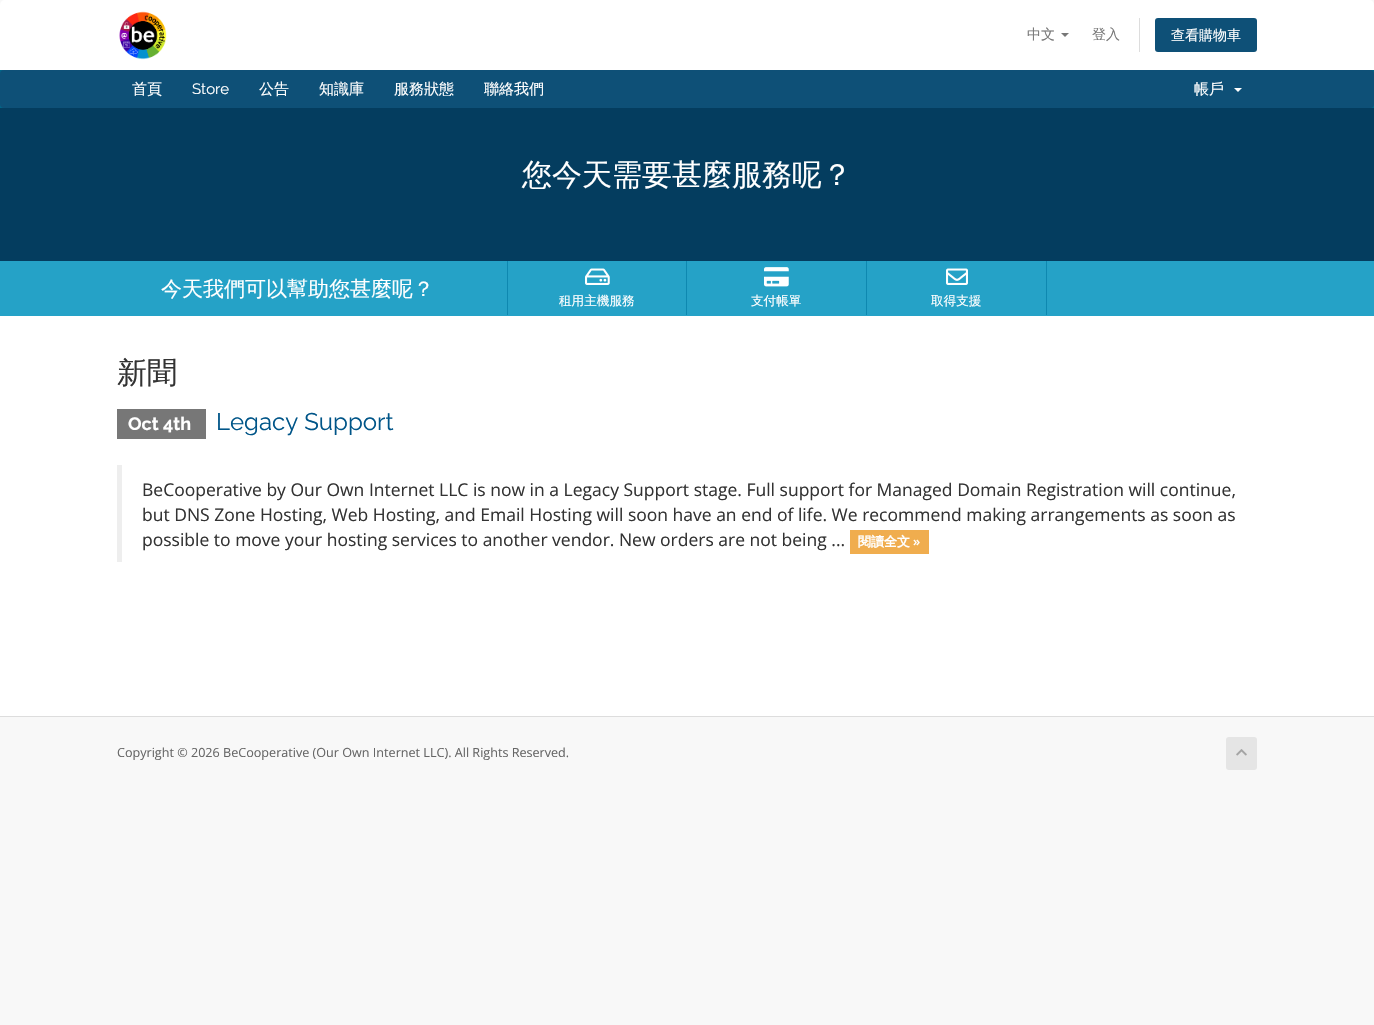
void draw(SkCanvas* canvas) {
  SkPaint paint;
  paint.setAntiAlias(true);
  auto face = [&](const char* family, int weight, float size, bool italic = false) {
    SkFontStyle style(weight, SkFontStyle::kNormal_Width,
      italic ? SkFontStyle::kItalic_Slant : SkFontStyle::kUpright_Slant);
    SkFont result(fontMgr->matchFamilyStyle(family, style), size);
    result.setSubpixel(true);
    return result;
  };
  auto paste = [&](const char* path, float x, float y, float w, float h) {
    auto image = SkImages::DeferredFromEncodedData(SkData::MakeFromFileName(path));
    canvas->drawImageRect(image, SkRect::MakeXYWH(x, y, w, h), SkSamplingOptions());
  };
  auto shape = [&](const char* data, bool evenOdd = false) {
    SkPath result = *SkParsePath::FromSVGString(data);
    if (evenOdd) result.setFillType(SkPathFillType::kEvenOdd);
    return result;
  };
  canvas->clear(0xfff8f8f8);
  paint.setColor(0xffffffff);
  canvas->drawPath(shape("M5 0H1369C1372 0 1374 2 1374 5V70H0V5C0 2 2 0 5 0Z"), paint);
  paste("img/1.png", 119, 11, 48, 49);
  paint.setColor(0xff777777);
  canvas->drawPath(shape("M1061 33H1069L1065 37Z"), paint);
  paint.setColor(0xffdddddd);
  canvas->drawRect(SkRect::MakeXYWH(1139, 18, 1, 34), paint);
  paint.setColor(0xff0e5077);
  canvas->drawRoundRect(SkRect::MakeXYWH(1155, 18, 102, 34), 3, 3, paint);
  paint.setColor(0xff006687);
  canvas->drawRect(SkRect::MakeXYWH(0, 70, 1374, 38), paint);
  paint.setColor(0xff0e5077);
  canvas->drawRoundRect(SkRect::MakeXYWH(0, 70, 1374, 38), 4, 4, paint);
  paint.setColor(0xffffffff);
  canvas->drawPath(shape("M1234 88H1242L1238 92Z"), paint);
  {
    const struct { float x, y, w, h; SkColor color; } items[] = {
      {0, 108, 1374, 153, 0xff043d5f},
      {0, 261, 1374, 55, 0xff25a2c7},
      {686, 261, 1, 54, 0xff0e88b0},
      {507, 261, 1, 54, 0xff0e88b0},
    };
    for (auto [x, y, w, h, color] : items) {
      paint.setColor(color);
      canvas->drawRect(SkRect::MakeXYWH(x, y, w, h), paint);
    }
  }
  paste("img/2.png", 585, 268, 25, 17);
  canvas->drawRect(SkRect::MakeXYWH(866, 261, 1, 54), paint);
  paste("img/3.png", 764, 267, 25, 20);
  canvas->drawRect(SkRect::MakeXYWH(1046, 261, 1, 54), paint);
  paste("img/4.png", 946, 268, 22, 17);
  {
    const struct { float x, y, w, h; SkColor color; } items[] = {
      {0, 316, 1374, 400, 0xffffffff},
      {117, 409, 89, 30, 0xff777777},
      {117, 465, 5, 97, 0xffeeeeee},
      {850, 530, 79, 24, 0xfff0ad4e},
      {0, 716, 1374, 1, 0xffdddddd},
    };
    for (auto [x, y, w, h, color] : items) {
      paint.setColor(color);
      canvas->drawRect(SkRect::MakeXYWH(x, y, w, h), paint);
    }
  }
  paint.setColor(0xffe5e5e5);
  canvas->drawRoundRect(SkRect::MakeXYWH(1226, 737, 31, 33), 3, 3, paint);
  paste("img/5.png", 1236, 749, 11, 7);
  auto f0 = face("WenQuanYi Zen Hei", 500, 14);
  paint.setColor(0xff777777);
  canvas->drawString("中文", 1027, 39, f0, paint);
  canvas->drawString("登入", 1092, 39, f0, paint);
  paint.setColor(0xffffffff);
  canvas->drawString("查看購物車", 1171, 40, f0, paint);
  auto f1 = face("WenQuanYi Zen Hei", 500, 15);
  canvas->drawString("首頁", 132, 94, f1, paint);
  auto f2 = face("Raleway", 400, 15);
  canvas->drawString("Store", 192, 94, f2, paint);
  {
    const struct { const char* s; float x, y; } items[] = {
      {"公告", 259, 94},
      {"知識庫", 319, 94},
      {"服務狀態", 394, 94},
      {"聯絡我們", 484, 94},
      {"帳戶", 1194, 94},
    };
    for (auto [s, x, y] : items) {
      canvas->drawString(s, x, y, f1, paint);
    }
  }
  auto f3 = face("WenQuanYi Zen Hei", 500, 30);
  canvas->drawString("您今天需要甚麼服務呢？", 522, 185, f3, paint);
  auto f4 = face("WenQuanYi Zen Hei", 500, 21);
  canvas->drawString("今天我們可以幫助您甚麼呢？", 161, 296, f4, paint);
  auto f5 = face("WenQuanYi Zen Hei", 500, 12.6f);
  {
    const struct { const char* s; float x, y; } items[] = {
      {"租用主機服務", 559, 305},
      {"支付帳單", 751, 305},
      {"取得支援", 931, 305},
    };
    for (auto [s, x, y] : items) {
      canvas->drawString(s, x, y, f5, paint);
    }
  }
  paint.setColor(0xff333333);
  canvas->drawString("新聞", 117, 383, f3, paint);
  auto f6 = face("Raleway", 700, 18);
  paint.setColor(0xffffffff);
  canvas->drawString("Oct 4th", 128, 430, f6, paint);
  auto f7 = face("Raleway", 400, 24);
  paint.setColor(0xff005588);
  canvas->drawString("Legacy Support", 216, 430, f7, paint);
  auto f8 = face("Open Sans", 400, 17.5f);
  paint.setColor(0xff333333);
  {
    const struct { const char* s; float x, y; } items[] = {
      {"BeCooperative by Our Own Internet LLC is now in a Legacy Support stage. Full support for Managed Domain Registration will continue,", 142, 496},
      {"but DNS Zone Hosting, Web Hosting, and Email Hosting will soon have an end of life. We recommend making arrangements as soon as", 142, 521},
      {"possible to move your hosting services to another vendor. New orders are not being ...", 142, 546},
    };
    for (auto [s, x, y] : items) {
      canvas->drawString(s, x, y, f8, paint);
    }
  }
  auto f9 = face("WenQuanYi Zen Hei", 700, 13);
  paint.setColor(0xffffffff);
  canvas->drawString("閱讀全文", 858, 546, f9, paint);
  auto f10 = face("Open Sans", 600, 13);
  canvas->drawString("»", 913, 546, f10, paint);
  auto f11 = face("Open Sans", 400, 12.6f);
  paint.setColor(0xff666666);
  canvas->drawString("Copyright © 2026 BeCooperative (Our Own Internet LLC). All Rights Reserved.", 117, 757, f11, paint);
}
